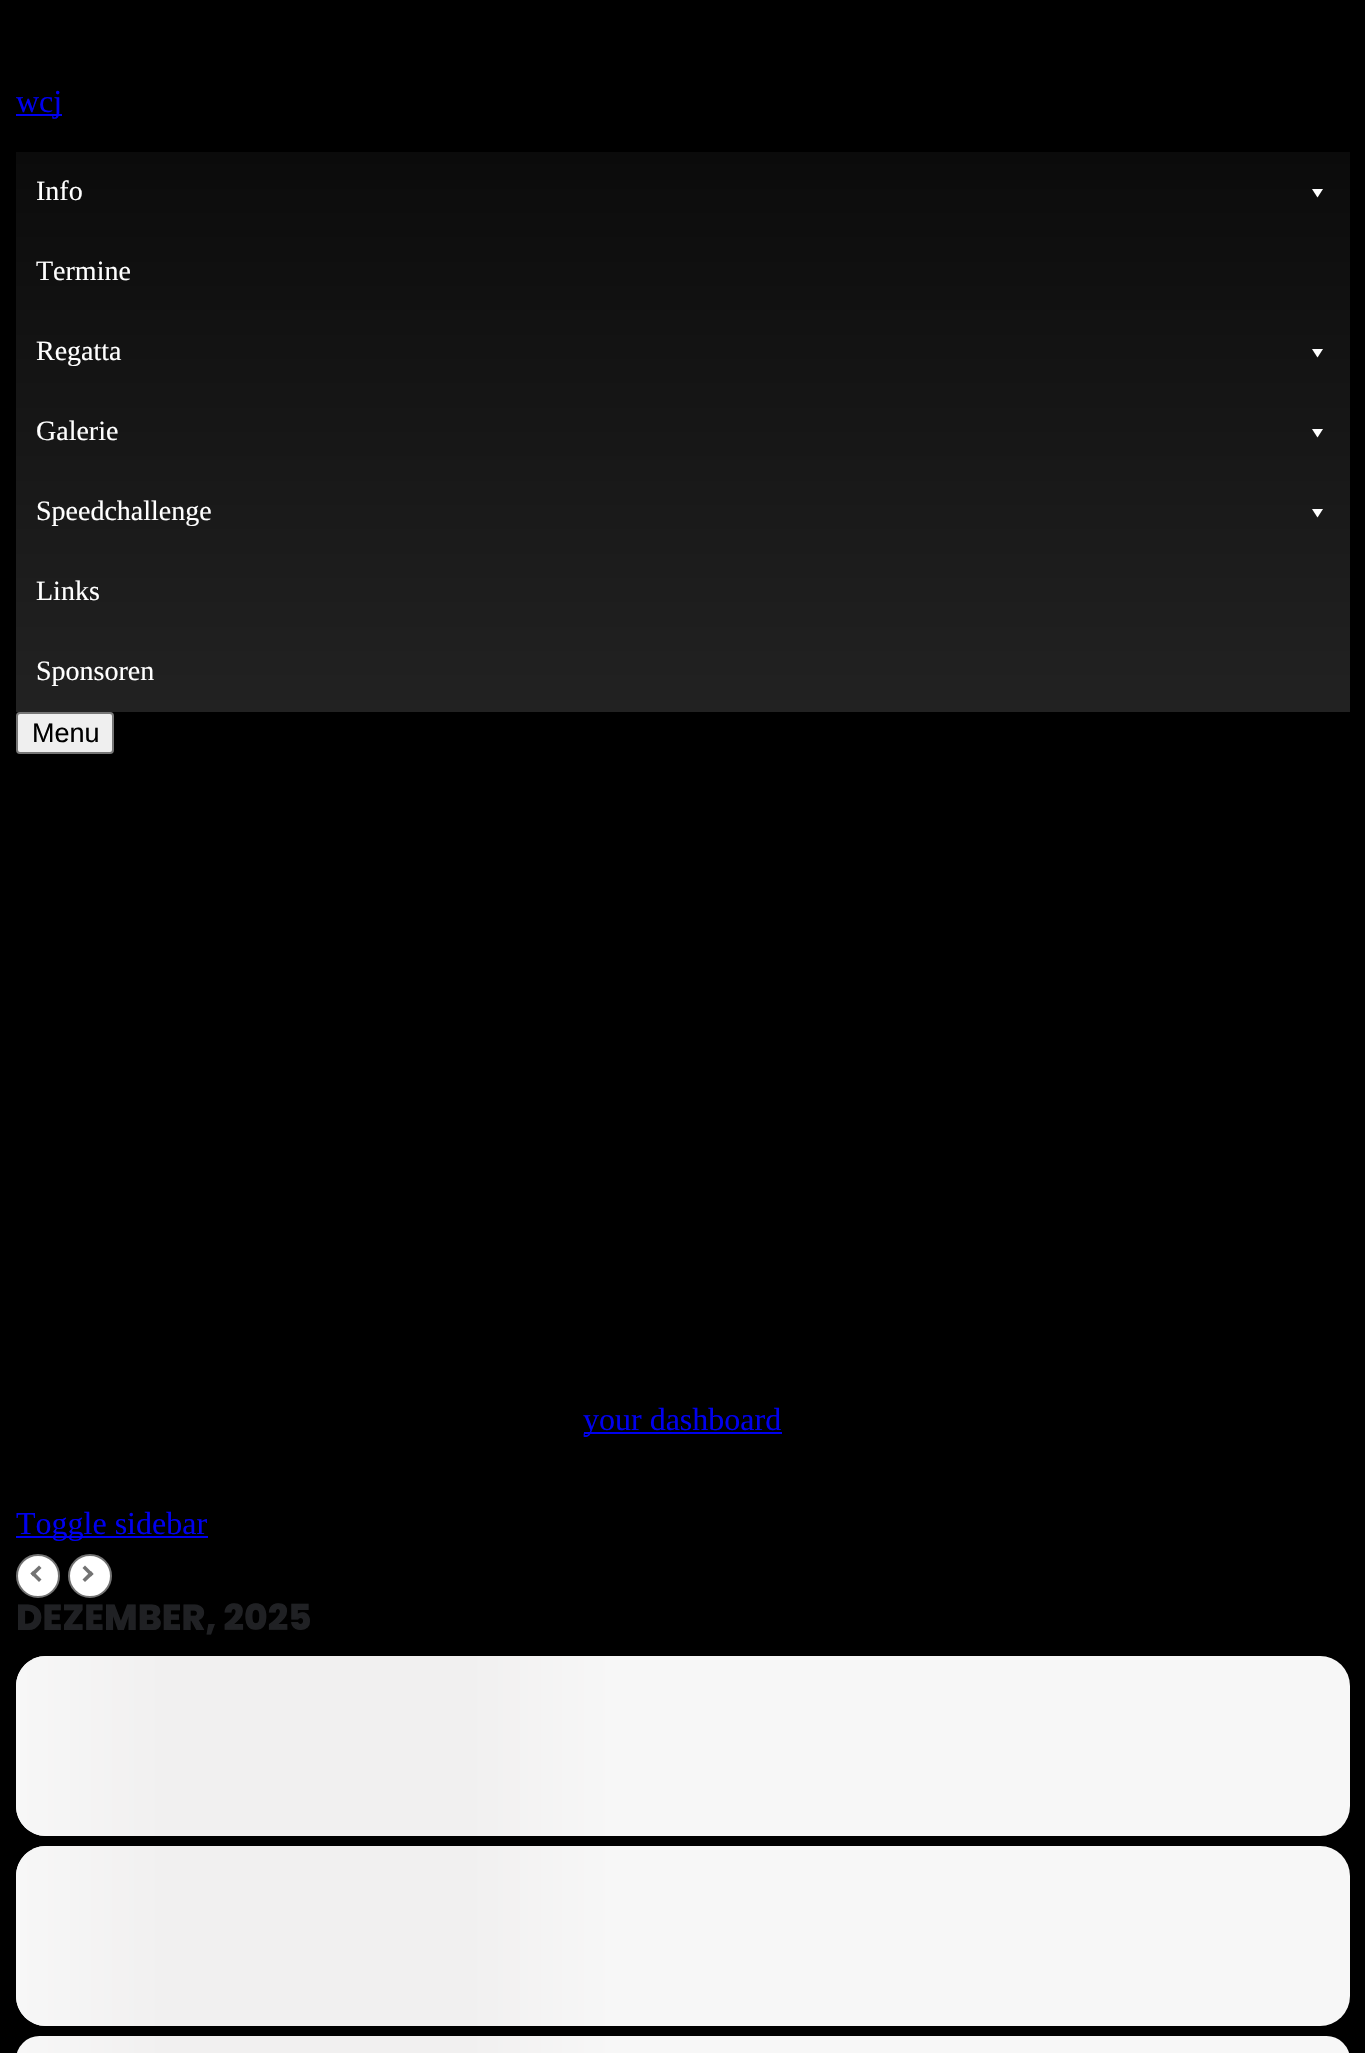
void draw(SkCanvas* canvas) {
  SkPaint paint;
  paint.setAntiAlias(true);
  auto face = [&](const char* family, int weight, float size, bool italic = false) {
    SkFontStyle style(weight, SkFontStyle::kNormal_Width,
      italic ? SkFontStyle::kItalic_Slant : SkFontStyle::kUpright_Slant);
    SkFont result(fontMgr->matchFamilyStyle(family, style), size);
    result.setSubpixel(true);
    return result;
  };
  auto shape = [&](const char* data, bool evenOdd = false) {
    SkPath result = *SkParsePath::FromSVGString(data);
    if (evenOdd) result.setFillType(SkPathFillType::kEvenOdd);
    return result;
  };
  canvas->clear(0xff000000);
  paint.setColor(0xff0000ee);
  canvas->drawRect(SkRect::MakeXYWH(16, 114, 46, 2), paint);
  {
    const SkColor colors[] = {0xff0b0b0b, 0xff222222};
    const float stops[] = {0, 1};
    const SkPoint ends[] = {{683, 152}, {683, 712}};
    paint.setShader(SkGradientShader::MakeLinear(ends, colors, stops, 2, SkTileMode::kClamp));
    paint.setAlpha(255);
  }
  canvas->drawRect(SkRect::MakeXYWH(16, 152, 1334, 560), paint);
  paint.setShader(nullptr);
  paint.setColor(0xffffffff);
  canvas->drawPath(shape("M1323 189L1317.5 197.5L1312 189Z"), paint);
  canvas->drawPath(shape("M1323 349L1317.5 357.5L1312 349Z"), paint);
  canvas->drawPath(shape("M1323 429L1317.5 437.5L1312 429Z"), paint);
  canvas->drawPath(shape("M1323 509L1317.5 517.5L1312 509Z"), paint);
  paint.setColor(0xffefefef);
  canvas->drawRoundRect(SkRect::MakeXYWH(17, 713, 96, 40), 3, 3, paint);
  paint.setStroke(true);
  paint.setStrokeWidth(2);
  paint.setColor(0xff767676);
  canvas->drawRoundRect(SkRect::MakeXYWH(17, 713, 96, 40), 3, 3, paint);
  paint.setStroke(false);
  paint.setColor(0xff0000ee);
  canvas->drawRect(SkRect::MakeXYWH(584, 1432, 198, 2), paint);
  canvas->drawRect(SkRect::MakeXYWH(16, 1536, 192, 2), paint);
  paint.setColor(0xffffffff);
  canvas->drawCircle(38, 1576, 21, paint);
  paint.setStroke(true);
  paint.setColor(0xff737373);
  canvas->drawCircle(38, 1576, 21, paint);
  paint.setStroke(false);
  canvas->drawPath(shape("M41.5 1579.5L39 1582L30.5 1573.5L33 1571Z"), paint);
  canvas->drawPath(shape("M41.5 1568L33 1576.5L30.5 1573.5L39 1565.5Z"), paint);
  paint.setColor(0xffffffff);
  canvas->drawCircle(90, 1576, 21, paint);
  paint.setStroke(true);
  paint.setColor(0xff737373);
  canvas->drawCircle(90, 1576, 21, paint);
  paint.setStroke(false);
  canvas->drawPath(shape("M82.5 1568L85 1565.5L93.5 1574L91 1576.5Z"), paint);
  canvas->drawPath(shape("M82.5 1579.5L91 1571L93.5 1574L85 1582Z"), paint);
  paint.setColor(0xfff7f7f7);
  canvas->drawRoundRect(SkRect::MakeXYWH(16, 1656, 1334, 180), 30, 30, paint);
  {
    const SkColor colors[] = {0xfff7f7f7, 0xfff1f0f0, 0xfff1f0f0, 0xfff7f7f7};
    const float stops[] = {0, 0.25f, 0.75f, 1};
    const SkPoint ends[] = {{16, 1746}, {616, 1746}};
    paint.setShader(SkGradientShader::MakeLinear(ends, colors, stops, 4, SkTileMode::kClamp));
    paint.setAlpha(255);
  }
  canvas->drawPath(shape("M46 1656H616V1836H46C29.5 1836 16 1822.5 16 1806V1686C16 1669.5 29.5 1656 46 1656Z"), paint);
  paint.setShader(nullptr);
  paint.setColor(0xfff7f7f7);
  canvas->drawRoundRect(SkRect::MakeXYWH(16, 1846, 1334, 180), 30, 30, paint);
  {
    const SkColor colors[] = {0xfff7f7f7, 0xfff1f0f0, 0xfff1f0f0, 0xfff7f7f7};
    const float stops[] = {0, 0.25f, 0.75f, 1};
    const SkPoint ends[] = {{16, 1936}, {616, 1936}};
    paint.setShader(SkGradientShader::MakeLinear(ends, colors, stops, 4, SkTileMode::kClamp));
    paint.setAlpha(255);
  }
  canvas->drawPath(shape("M46 1846H616V2026H46C29.5 2026 16 2012.5 16 1996V1876C16 1859.5 29.5 1846 46 1846Z"), paint);
  paint.setShader(nullptr);
  paint.setColor(0xfff7f7f7);
  canvas->drawRoundRect(SkRect::MakeXYWH(16, 2036, 1334, 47), 30, 30, paint);
  {
    const SkColor colors[] = {0xfff7f7f7, 0xfff1f0f0, 0xfff1f0f0, 0xfff7f7f7};
    const float stops[] = {0, 0.25f, 0.75f, 1};
    const SkPoint ends[] = {{16, 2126}, {616, 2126}};
    paint.setShader(SkGradientShader::MakeLinear(ends, colors, stops, 4, SkTileMode::kClamp));
    paint.setAlpha(255);
  }
  canvas->drawPath(shape("M46 2036H616V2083H46C29.5 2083 16 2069.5 16 2053V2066C16 2049.5 29.5 2036 46 2036Z"), paint);
  auto f0 = face("Liberation Serif", 400, 32);
  paint.setShader(nullptr);
  paint.setColor(0xff0000ee);
  canvas->drawString("wcj", 16, 112, f0, paint);
  auto f1 = face("Liberation Serif", 400, 28);
  paint.setColor(0xffffffff);
  {
    const struct { const char* s; float x, y; } items[] = {
      {"Info", 36, 200},
      {"Termine", 36, 280},
      {"Regatta", 36, 360},
      {"Galerie", 36, 440},
      {"Speedchallenge", 36, 520},
      {"Links", 36, 600},
      {"Sponsoren", 36, 680},
    };
    for (auto [s, x, y] : items) {
      canvas->drawString(s, x, y, f1, paint);
    }
  }
  auto f2 = face("Liberation Sans", 400, 27);
  paint.setColor(0xff000000);
  canvas->drawString("Menu", 32, 742, f2, paint);
  paint.setColor(0xff0000ee);
  canvas->drawString("your dashboard", 583, 1430, f0, paint);
  canvas->drawString("Toggle sidebar", 16, 1534, f0, paint);
  auto f3 = face("Poppins", 800, 36);
  paint.setColor(0xff202124);
  canvas->drawString("DEZEMBER, 2025", 16, 1630, f3, paint);
}
